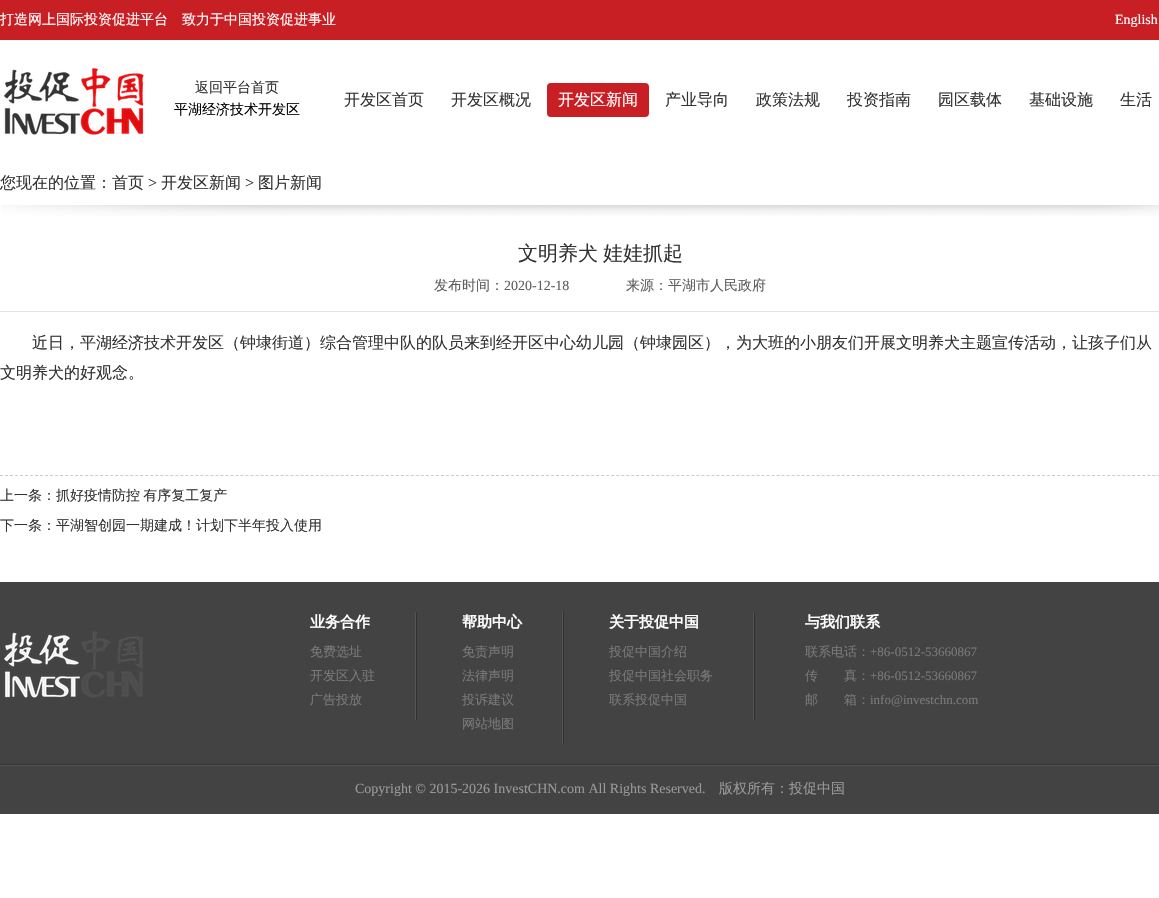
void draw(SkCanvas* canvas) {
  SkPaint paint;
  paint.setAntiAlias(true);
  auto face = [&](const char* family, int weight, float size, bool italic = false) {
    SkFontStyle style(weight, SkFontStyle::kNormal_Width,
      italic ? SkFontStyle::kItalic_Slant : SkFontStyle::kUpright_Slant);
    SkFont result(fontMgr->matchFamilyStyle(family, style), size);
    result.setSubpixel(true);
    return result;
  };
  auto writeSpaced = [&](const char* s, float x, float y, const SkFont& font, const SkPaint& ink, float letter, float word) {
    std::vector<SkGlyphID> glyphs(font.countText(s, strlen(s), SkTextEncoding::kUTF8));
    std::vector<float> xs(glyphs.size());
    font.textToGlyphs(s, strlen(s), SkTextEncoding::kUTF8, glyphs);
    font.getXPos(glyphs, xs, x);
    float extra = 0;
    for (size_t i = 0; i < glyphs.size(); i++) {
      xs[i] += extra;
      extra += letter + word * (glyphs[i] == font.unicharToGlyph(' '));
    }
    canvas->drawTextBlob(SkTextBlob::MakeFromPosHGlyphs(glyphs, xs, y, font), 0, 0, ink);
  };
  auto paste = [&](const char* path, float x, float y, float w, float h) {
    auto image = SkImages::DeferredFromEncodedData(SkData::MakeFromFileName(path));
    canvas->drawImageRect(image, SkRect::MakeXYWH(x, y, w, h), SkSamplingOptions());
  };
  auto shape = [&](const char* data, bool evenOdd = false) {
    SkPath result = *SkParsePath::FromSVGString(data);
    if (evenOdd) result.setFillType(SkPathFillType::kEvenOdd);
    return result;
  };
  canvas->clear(0xffffffff);
  paint.setColor(0xffc81f24);
  canvas->drawRect(SkRect::MakeXYWH(0, 0, 1159, 40), paint);
  paste("img/1.png", 3, 66, 141, 70);
  canvas->drawRoundRect(SkRect::MakeXYWH(547, 83, 102, 34), 4, 4, paint);
  paste("img/2.png", 1, 205, 1158, 11);
  paint.setColor(0xffe2e2e2);
  canvas->drawRect(SkRect::MakeXYWH(0, 311, 1159, 1), paint);
  paint.setStroke(true);
  paint.setStrokeWidth(1);
  paint.setColor(0xffcccccc);
  paint.setPathEffect(SkDashPathEffect::Make({{3, 2.01f}}, 0));
  canvas->drawPath(shape("M0 475.5H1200"), paint);
  paint.setPathEffect(nullptr);
  paint.setStroke(false);
  paint.setColor(0xff434343);
  canvas->drawRect(SkRect::MakeXYWH(0, 582, 1159, 232), paint);
  paste("img/3.png", 4, 631, 139, 67);
  paste("img/4.png", 415, 612, 2, 108);
  paste("img/5.png", 562, 612, 2, 132);
  paste("img/4.png", 753, 612, 2, 108);
  paste("img/6.png", 0, 764, 1159, 2);
  auto f0 = face("WenQuanYi Zen Hei", 500, 14);
  paint.setColor(0xffffffff);
  canvas->drawString("打造网上国际投资促进平台　致力于中国投资促进事业", 0, 24, f0, paint);
  auto f1 = face("Liberation Serif", 400, 14);
  canvas->drawString("English", 1115, 24, f1, paint);
  paint.setColor(0xff333333);
  canvas->drawString("返回平台首页", 195, 92, f0, paint);
  paint.setColor(0xff000000);
  canvas->drawString("平湖经济技术开发区", 174, 114, f0, paint);
  auto f2 = face("WenQuanYi Zen Hei", 500, 16);
  paint.setColor(0xff333333);
  canvas->drawString("开发区首页", 344, 105, f2, paint);
  canvas->drawString("开发区概况", 451, 105, f2, paint);
  paint.setColor(0xffffffff);
  canvas->drawString("开发区新闻", 558, 105, f2, paint);
  paint.setColor(0xff333333);
  {
    const struct { const char* s; float x, y; } items[] = {
      {"产业导向", 665, 105},
      {"政策法规", 756, 105},
      {"投资指南", 847, 105},
      {"园区载体", 938, 105},
      {"基础设施", 1029, 105},
      {"生活", 1120, 105},
      {"您现在的位置：首页", 0, 188},
    };
    for (auto [s, x, y] : items) {
      canvas->drawString(s, x, y, f2, paint);
    }
  }
  auto f3 = face("Liberation Serif", 400, 16);
  canvas->drawString(">", 148, 188, f3, paint);
  canvas->drawString("开发区新闻", 161, 188, f2, paint);
  canvas->drawString(">", 245, 188, f3, paint);
  canvas->drawString("图片新闻", 258, 188, f2, paint);
  auto f4 = face("WenQuanYi Zen Hei", 500, 20);
  writeSpaced("文明养犬 娃娃抓起", 518, 260, f4, paint, 0, -1);
  paint.setColor(0xff5e5e5e);
  canvas->drawString("发布时间：", 434, 290, f0, paint);
  canvas->drawString("2020-12-18", 504, 290, f1, paint);
  canvas->drawString("来源：平湖市人民政府", 626, 290, f0, paint);
  paint.setColor(0xff333333);
  canvas->drawString("近日，平湖经济技术开发区（钟埭街道）综合管理中队的队员来到经开区中心幼儿园（钟埭园区），为大班的小朋友们开展文明养犬主题宣传活动，让孩子们从", 32, 348, f2, paint);
  canvas->drawString("文明养犬的好观念。", 0, 378, f2, paint);
  writeSpaced("上一条：抓好疫情防控 有序复工复产", 0, 500, f0, paint, 0, -1);
  canvas->drawString("下一条：平湖智创园一期建成！计划下半年投入使用", 0, 530, f0, paint);
  auto f5 = face("WenQuanYi Zen Hei", 700, 15);
  paint.setColor(0xffffffff);
  canvas->drawString("业务合作", 310, 627, f5, paint);
  auto f6 = face("WenQuanYi Zen Hei", 500, 13);
  paint.setColor(0xff797979);
  {
    const struct { const char* s; float x, y; } items[] = {
      {"免费选址", 310, 656},
      {"开发区入驻", 310, 680},
      {"广告投放", 310, 704},
    };
    for (auto [s, x, y] : items) {
      canvas->drawString(s, x, y, f6, paint);
    }
  }
  paint.setColor(0xffffffff);
  canvas->drawString("帮助中心", 462, 627, f5, paint);
  paint.setColor(0xff797979);
  {
    const struct { const char* s; float x, y; } items[] = {
      {"免责声明", 462, 656},
      {"法律声明", 462, 680},
      {"投诉建议", 462, 704},
      {"网站地图", 462, 728},
    };
    for (auto [s, x, y] : items) {
      canvas->drawString(s, x, y, f6, paint);
    }
  }
  paint.setColor(0xffffffff);
  canvas->drawString("关于投促中国", 609, 627, f5, paint);
  paint.setColor(0xff797979);
  {
    const struct { const char* s; float x, y; } items[] = {
      {"投促中国介绍", 609, 656},
      {"投促中国社会职务", 609, 680},
      {"联系投促中国", 609, 704},
    };
    for (auto [s, x, y] : items) {
      canvas->drawString(s, x, y, f6, paint);
    }
  }
  paint.setColor(0xffffffff);
  canvas->drawString("与我们联系", 805, 627, f5, paint);
  paint.setColor(0xff797979);
  canvas->drawString("联系电话：", 805, 656, f6, paint);
  auto f7 = face("Liberation Serif", 400, 13);
  canvas->drawString("+86-0512-53660867", 870, 656, f7, paint);
  canvas->drawString("传　　真：", 805, 680, f6, paint);
  canvas->drawString("+86-0512-53660867", 870, 680, f7, paint);
  canvas->drawString("邮　　箱：", 805, 704, f6, paint);
  canvas->drawString("info@investchn.com", 870, 704, f7, paint);
  paint.setColor(0xff999999);
  canvas->drawString("Copyright © 2015-2026 InvestCHN.com All Rights Reserved.", 355, 793, f1, paint);
  canvas->drawString("版权所有：投促中国", 719, 793, f0, paint);
}
